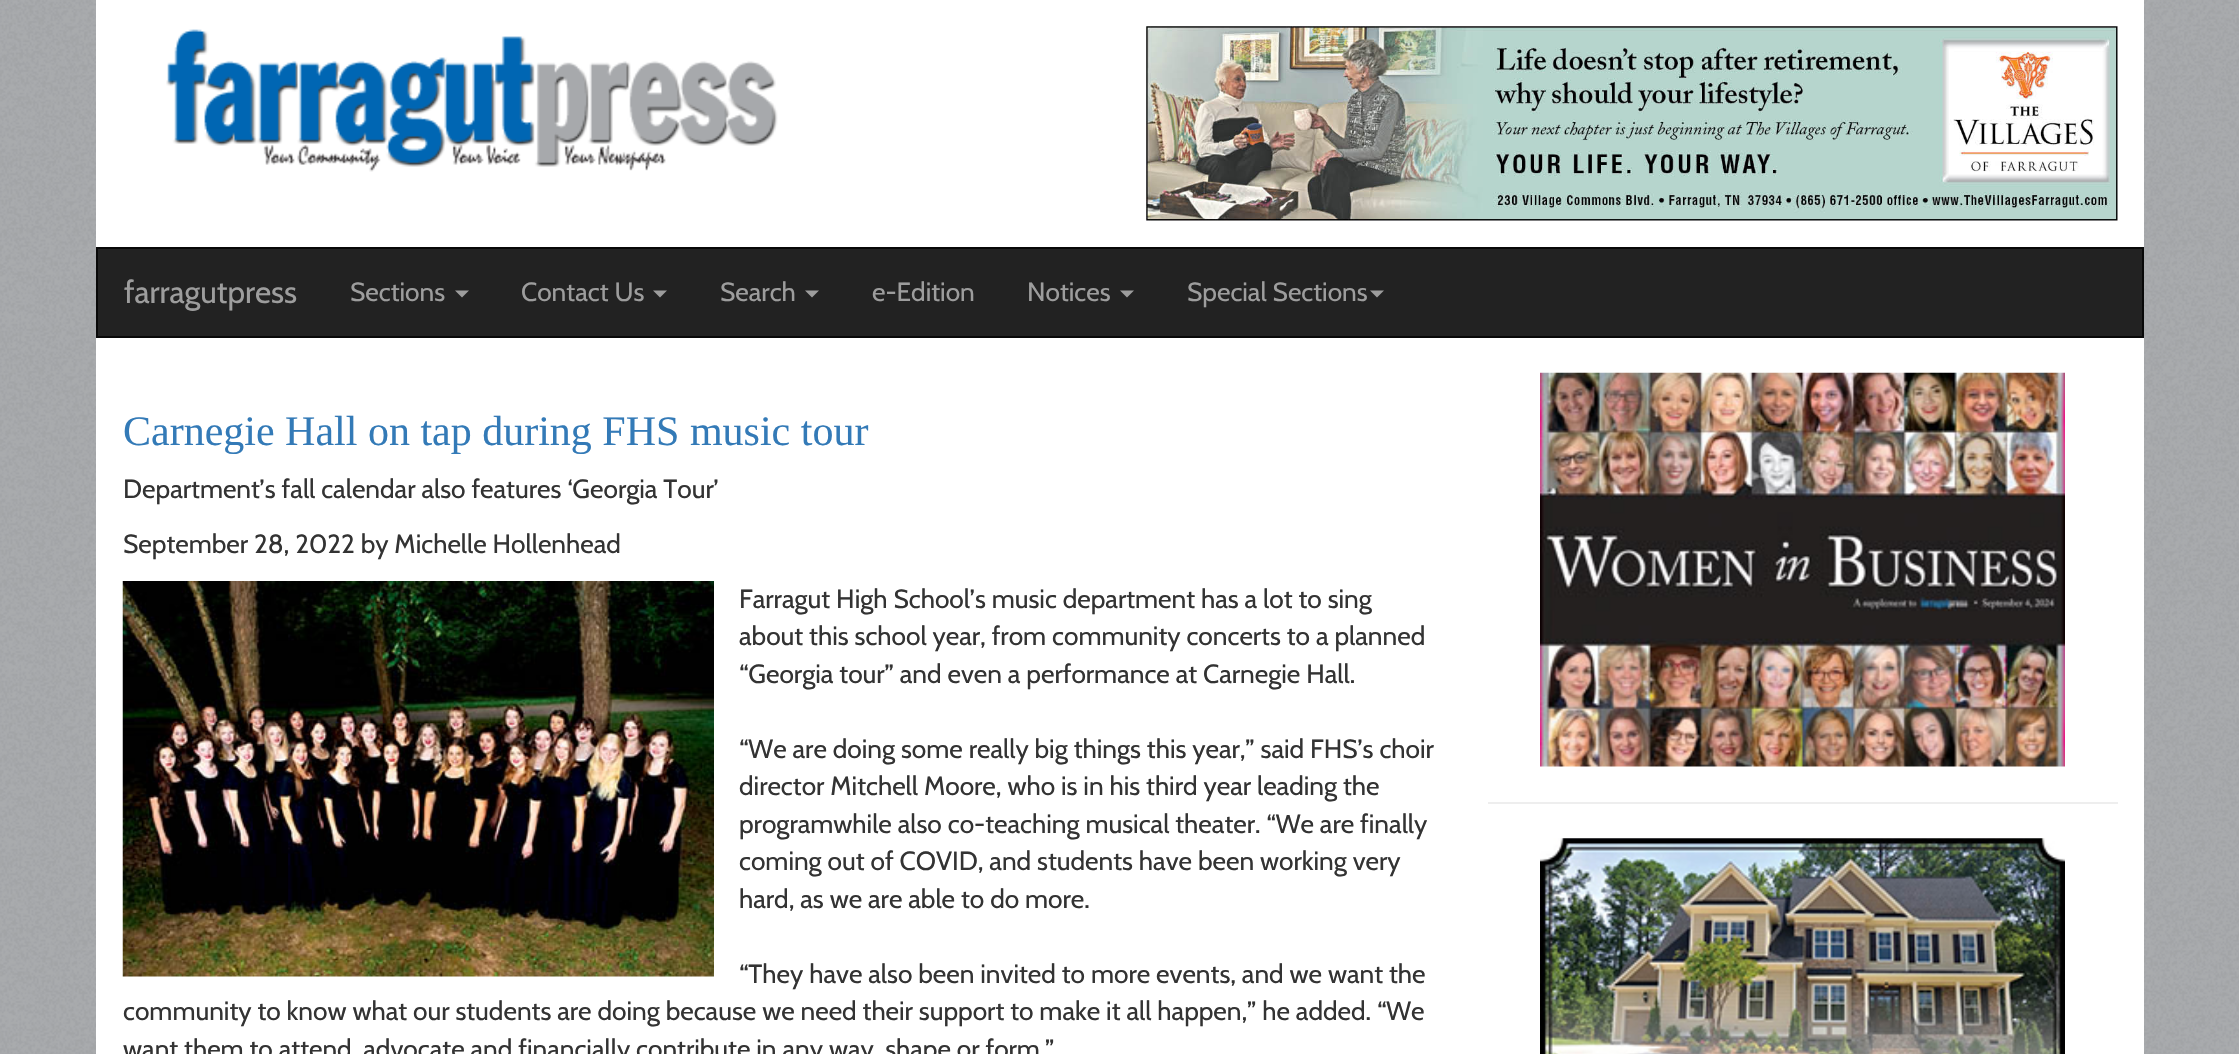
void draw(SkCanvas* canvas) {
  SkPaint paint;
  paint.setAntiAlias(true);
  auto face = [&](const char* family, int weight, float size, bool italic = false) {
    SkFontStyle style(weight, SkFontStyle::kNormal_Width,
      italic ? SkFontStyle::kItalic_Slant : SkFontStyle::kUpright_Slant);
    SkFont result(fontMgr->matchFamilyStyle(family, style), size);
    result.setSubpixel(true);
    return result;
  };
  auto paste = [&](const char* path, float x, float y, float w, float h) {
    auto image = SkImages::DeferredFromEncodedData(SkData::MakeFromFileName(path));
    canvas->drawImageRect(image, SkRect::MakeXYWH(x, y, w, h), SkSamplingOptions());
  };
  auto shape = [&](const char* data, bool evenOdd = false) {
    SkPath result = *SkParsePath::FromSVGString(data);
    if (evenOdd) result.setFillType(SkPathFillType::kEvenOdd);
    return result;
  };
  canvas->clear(0xffa7a9ac);
  paste("img/1.png", 0, 0, 2239, 1054);
  paint.setColor(0xffffffff);
  canvas->drawRect(SkRect::MakeXYWH(96, 0, 2048, 1054), paint);
  paste("img/2.png", 166, 29, 612, 143);
  paste("img/3.png", 1146, 26, 972, 195);
  paint.setColor(0xff222222);
  canvas->drawRect(SkRect::MakeXYWH(97, 248, 2046, 89), paint);
  paint.setStroke(true);
  paint.setStrokeWidth(2);
  paint.setColor(0xff080808);
  canvas->drawRect(SkRect::MakeXYWH(97, 248, 2046, 89), paint);
  paint.setStroke(false);
  paint.setColor(0xff9d9d9d);
  canvas->drawPath(shape("M455 290.5H469L462 297.5Z"), paint);
  canvas->drawPath(shape("M653 290.5H667L660 297.5Z"), paint);
  canvas->drawPath(shape("M805 290.5H819L812 297.5Z"), paint);
  canvas->drawPath(shape("M1120 290.5H1134L1127 297.5Z"), paint);
  canvas->drawPath(shape("M1370 290.5H1384L1377 297.5Z"), paint);
  paste("img/4.png", 122, 581, 592, 396);
  paste("img/5.png", 1540, 372, 525, 395);
  paint.setColor(0xffeeeeee);
  canvas->drawRect(SkRect::MakeXYWH(1488, 802, 630, 2), paint);
  paste("img/6.png", 1540, 838, 525, 216);
  auto f0 = face("Cabin", 400, 31.5f);
  paint.setColor(0xff9d9d9d);
  canvas->drawString("farragutpress", 124, 303, f0, paint);
  auto f1 = face("Cabin", 400, 26.25f);
  {
    const struct { const char* s; float x, y; } items[] = {
      {"Sections", 350, 301},
      {"Contact Us", 521, 301},
      {"Search", 720, 301},
      {"e-Edition", 872, 301},
      {"Notices", 1027, 301},
      {"Special Sections", 1187, 301},
    };
    for (auto [s, x, y] : items) {
      canvas->drawString(s, x, y, f1, paint);
    }
  }
  auto f2 = face("Liberation Serif", 400, 42);
  paint.setColor(0xff337ab7);
  canvas->drawString("Carnegie Hall on tap during FHS music tour", 123, 445, f2, paint);
  paint.setColor(0xff333333);
  {
    const struct { const char* s; float x, y; } items[] = {
      {"Department’s fall calendar also features ‘Georgia Tour’", 123, 498},
      {"September 28, 2022 by Michelle Hollenhead", 123, 553},
      {"Farragut High School’s music department has a lot to sing", 739, 608},
      {"about this school year, from community concerts to a planned", 739, 645},
      {"“Georgia tour” and even a performance at Carnegie Hall.", 739, 683},
      {"“We are doing some really big things this year,” said FHS’s choir", 739, 758},
      {"director Mitchell Moore, who is in his third year leading the", 739, 795},
      {"programwhile also co-teaching musical theater. “We are finally", 739, 833},
      {"coming out of COVID, and students have been working very", 739, 870},
      {"hard, as we are able to do more.", 739, 908},
      {"“They have also been invited to more events, and we want the", 739, 983},
      {"community to know what our students are doing because we need their support to make it all happen,” he added. “We", 123, 1020},
      {"want them to attend, advocate and financially contribute in any way. shape or form.”", 123, 1058},
    };
    for (auto [s, x, y] : items) {
      canvas->drawString(s, x, y, f1, paint);
    }
  }
}
